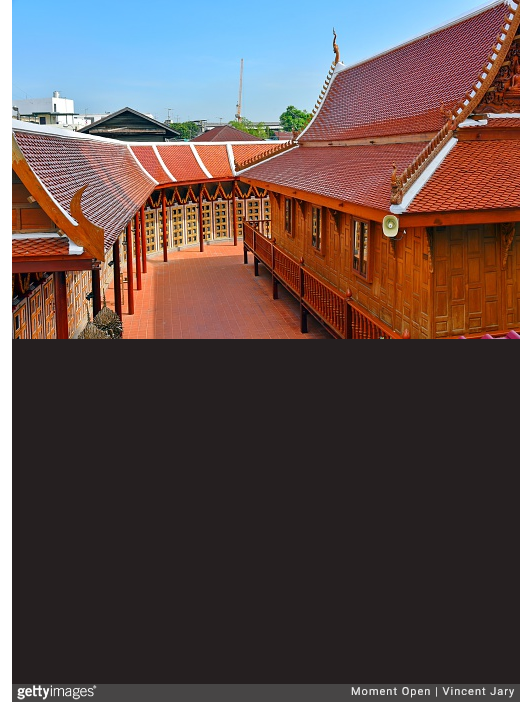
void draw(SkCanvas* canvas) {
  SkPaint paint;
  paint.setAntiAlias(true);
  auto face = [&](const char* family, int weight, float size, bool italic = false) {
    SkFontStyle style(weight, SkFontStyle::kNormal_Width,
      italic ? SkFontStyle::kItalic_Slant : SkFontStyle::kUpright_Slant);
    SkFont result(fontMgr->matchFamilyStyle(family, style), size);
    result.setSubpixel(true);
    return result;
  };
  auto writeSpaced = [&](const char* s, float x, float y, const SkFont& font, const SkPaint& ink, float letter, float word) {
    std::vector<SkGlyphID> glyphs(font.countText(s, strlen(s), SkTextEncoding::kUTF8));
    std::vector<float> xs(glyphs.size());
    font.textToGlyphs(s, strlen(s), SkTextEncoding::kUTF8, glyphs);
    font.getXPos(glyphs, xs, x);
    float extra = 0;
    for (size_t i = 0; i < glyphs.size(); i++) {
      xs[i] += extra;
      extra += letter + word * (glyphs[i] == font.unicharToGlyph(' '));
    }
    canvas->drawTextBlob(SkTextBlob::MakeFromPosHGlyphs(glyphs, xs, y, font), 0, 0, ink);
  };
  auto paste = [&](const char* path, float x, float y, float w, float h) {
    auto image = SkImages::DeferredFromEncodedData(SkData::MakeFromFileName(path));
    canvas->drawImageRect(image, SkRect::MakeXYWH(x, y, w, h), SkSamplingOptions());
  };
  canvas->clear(0xffffffff);
  paint.setColor(0xff251f20);
  canvas->drawRect(SkRect::MakeXYWH(12, 339, 508, 345), paint);
  paste("img/1.png", 12, 0, 508, 339);
  paint.setColor(0xff474545);
  canvas->drawRect(SkRect::MakeXYWH(12, 684, 508, 18), paint);
  paste("img/2.png", 17, 685, 80, 15);
  auto f0 = face("Roboto", 400, 11);
  paint.setColor(0xffeeeeee);
  writeSpaced("Moment Open | Vincent Jary", 351, 695, f0, paint, 1, 0);
}
